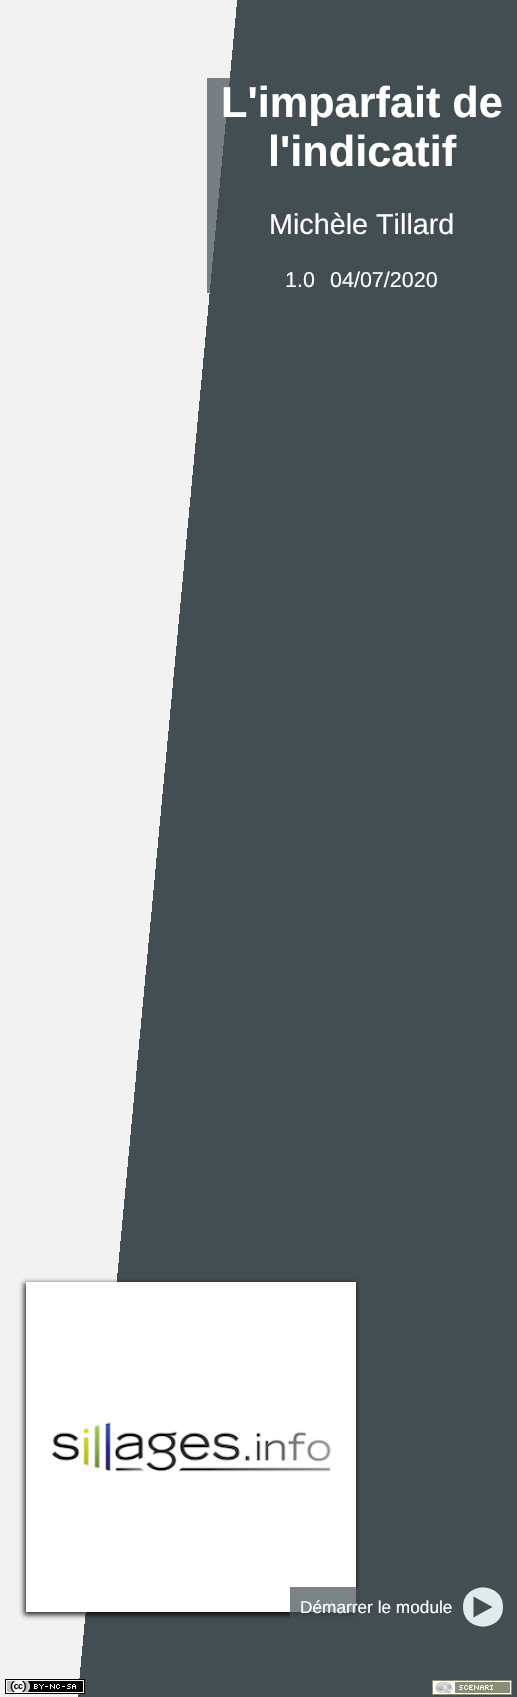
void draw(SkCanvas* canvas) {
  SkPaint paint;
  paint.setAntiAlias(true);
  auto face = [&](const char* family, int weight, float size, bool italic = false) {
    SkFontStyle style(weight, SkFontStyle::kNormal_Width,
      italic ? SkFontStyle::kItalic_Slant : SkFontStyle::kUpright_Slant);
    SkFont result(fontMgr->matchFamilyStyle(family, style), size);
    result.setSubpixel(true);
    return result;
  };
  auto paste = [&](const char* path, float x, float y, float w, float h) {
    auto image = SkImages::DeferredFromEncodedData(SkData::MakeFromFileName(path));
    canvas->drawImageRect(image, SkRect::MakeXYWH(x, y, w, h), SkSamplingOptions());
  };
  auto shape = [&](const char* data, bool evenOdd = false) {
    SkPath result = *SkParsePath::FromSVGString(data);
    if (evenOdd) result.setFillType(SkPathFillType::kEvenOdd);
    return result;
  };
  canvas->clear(0xffffffff);
  {
    const SkColor colors[] = {0xff434e52, 0xff434e52, 0xfff2f2f2, 0xfff2f2f2};
    const float stops[] = {0, 0.68f, 0.68f, 1};
    const SkPoint ends[] = {{515, 927}, {-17, 877}};
    paint.setShader(SkGradientShader::MakeLinear(ends, colors, stops, 4, SkTileMode::kClamp));
    paint.setAlpha(255);
  }
  canvas->drawRect(SkRect::MakeXYWH(0, 0, 517, 1697), paint);
  {
    const SkColor colors[] = {0xff434e52, 0xff434e52, 0xff787f82, 0xff787f82};
    const float stops[] = {0, 0.68f, 0.68f, 1};
    const SkPoint ends[] = {{515, 927}, {-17, 877}};
    paint.setShader(SkGradientShader::MakeLinear(ends, colors, stops, 4, SkTileMode::kClamp));
    paint.setAlpha(255);
  }
  canvas->drawRect(SkRect::MakeXYWH(207, 78, 23, 215), paint);
  paint.setShader(nullptr);
  paint.setColor(0xcc000000);
  paint.setMaskFilter(SkMaskFilter::MakeBlur(kNormal_SkBlurStyle, 2.5f));
  canvas->drawRect(SkRect::MakeXYWH(24, 1283, 332, 332), paint);
  paint.setMaskFilter(nullptr);
  paste("img/1.png", 26, 1282, 330, 330);
  paint.setColor(0xb3434e52);
  canvas->drawRect(SkRect::MakeXYWH(290, 1587, 70, 32), paint);
  paint.setColor(0xffe0ecec);
  canvas->drawPath(shape("M463 1607C463 1633 503 1633 503 1607C503 1581 463 1581 463 1607Z"), paint);
  paint.setColor(0xff434e52);
  canvas->drawPath(shape("M473.5 1596.5V1617.5L492.5 1607Z"), paint);
  paste("img/2.png", 5, 1679, 80, 15);
  paste("img/3.png", 432, 1680, 80, 15);
  auto f0 = face("Liberation Sans", 700, 43.25f);
  paint.setColor(0xffffffff);
  canvas->drawString("L'imparfait de", 221, 117, f0, paint);
  canvas->drawString("l'indicatif", 268, 166, f0, paint);
  auto f1 = face("Liberation Sans", 400, 28.75f);
  canvas->drawString("Michèle Tillard", 269, 234, f1, paint);
  auto f2 = face("Liberation Sans", 400, 21.5f);
  canvas->drawString("1.0", 285, 287, f2, paint);
  canvas->drawString("04/07/2020", 330, 287, f2, paint);
  auto f3 = face("Liberation Sans", 400, 17.25f);
  canvas->drawString("Démarrer le module", 300, 1613, f3, paint);
}
